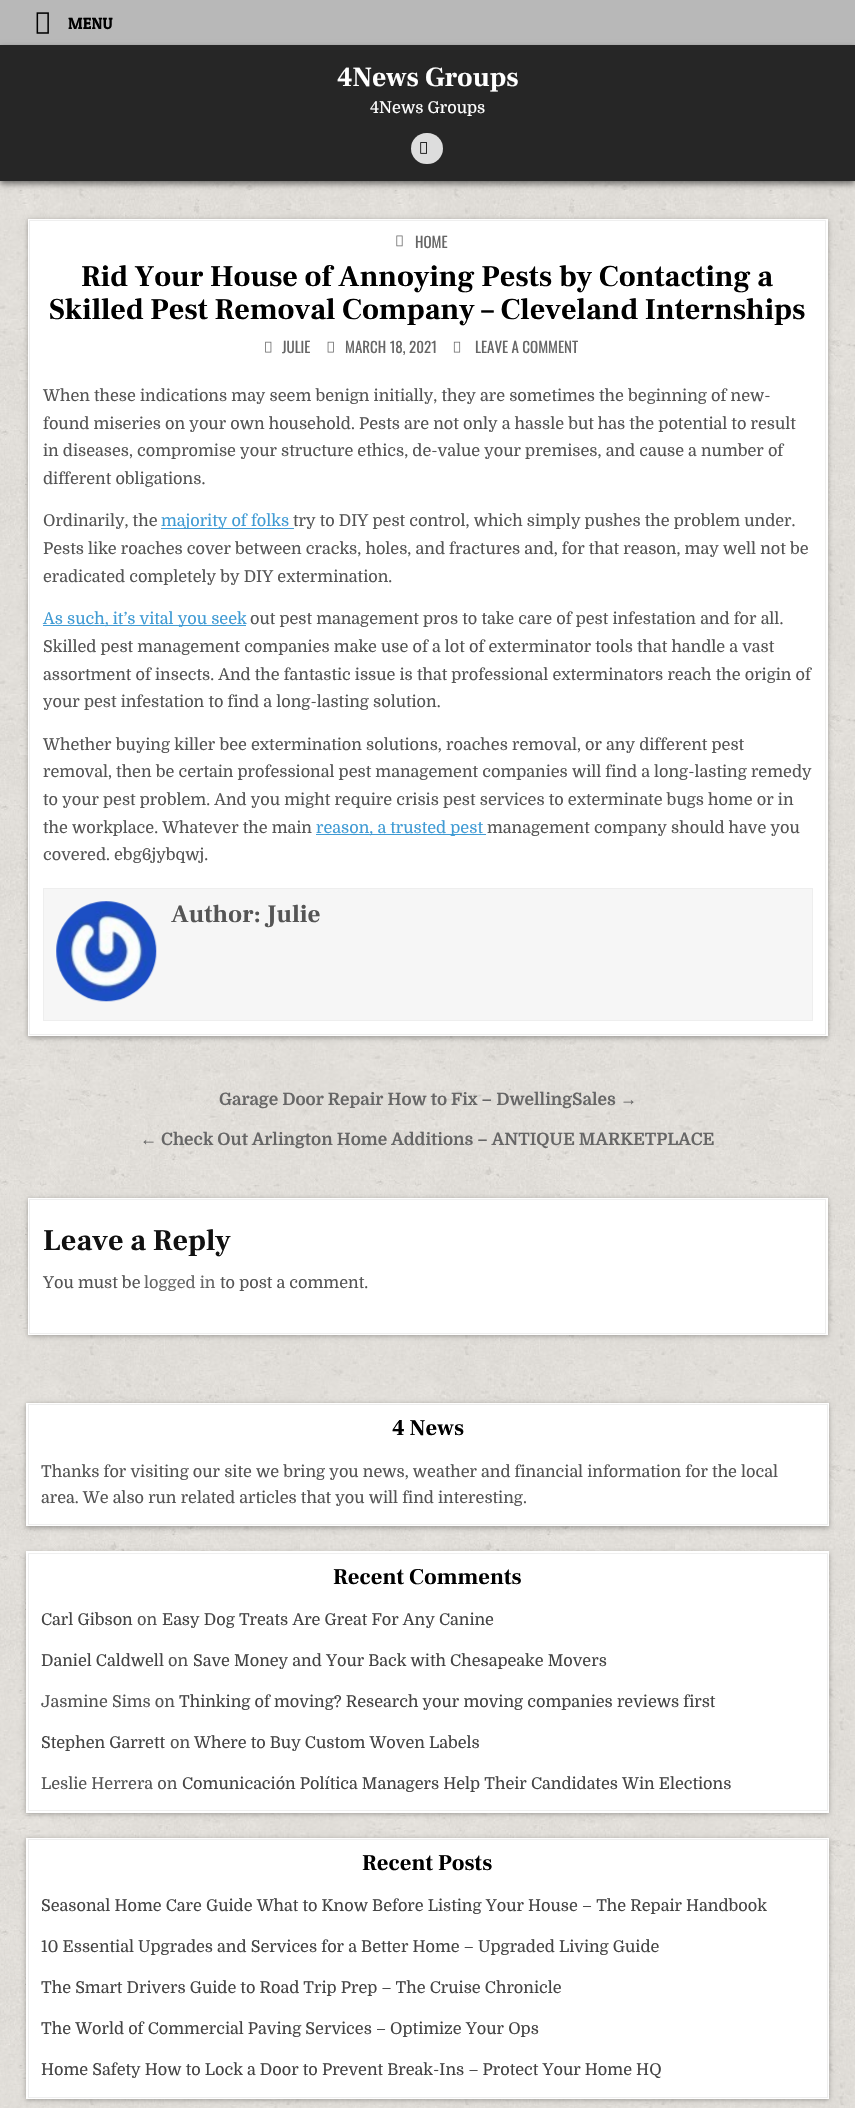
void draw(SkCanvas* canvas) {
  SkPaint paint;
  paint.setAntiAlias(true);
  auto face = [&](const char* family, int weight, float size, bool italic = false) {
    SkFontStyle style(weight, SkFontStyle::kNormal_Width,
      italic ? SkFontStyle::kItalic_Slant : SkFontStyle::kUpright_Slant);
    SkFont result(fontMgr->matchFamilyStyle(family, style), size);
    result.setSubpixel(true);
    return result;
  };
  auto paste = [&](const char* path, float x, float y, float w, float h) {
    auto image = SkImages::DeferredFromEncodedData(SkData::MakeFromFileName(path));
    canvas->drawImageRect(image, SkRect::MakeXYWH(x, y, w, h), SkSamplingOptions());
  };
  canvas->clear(0xffffffff);
  paste("img/1.png", 0, 181, 855, 1927);
  paint.setColor(0xffb8b8b8);
  canvas->drawRect(SkRect::MakeXYWH(0, 0, 855, 45), paint);
  paste("img/2.png", 36, 12, 13, 22);
  paint.setColor(0x80000000);
  paint.setMaskFilter(SkMaskFilter::MakeBlur(kNormal_SkBlurStyle, 3));
  canvas->drawRect(SkRect::MakeXYWH(0, 48, 855, 136), paint);
  paint.setMaskFilter(nullptr);
  paint.setColor(0xff262626);
  canvas->drawRect(SkRect::MakeXYWH(0, 45, 855, 136), paint);
  paint.setColor(0xffdddddd);
  canvas->drawRoundRect(SkRect::MakeXYWH(411, 133, 32, 31), 15.5f, 15.5f, paint);
  paste("img/3.png", 420, 142, 7, 12);
  paint.setColor(0x4d000000);
  paint.setMaskFilter(SkMaskFilter::MakeBlur(kNormal_SkBlurStyle, 2.5f));
  canvas->drawRect(SkRect::MakeXYWH(28, 220, 800, 818), paint);
  paint.setMaskFilter(nullptr);
  paint.setColor(0xffffffff);
  canvas->drawRect(SkRect::MakeXYWH(28, 219, 800, 817), paint);
  paint.setStroke(true);
  paint.setStrokeWidth(1);
  paint.setColor(0xffefefef);
  canvas->drawRect(SkRect::MakeXYWH(29.5f, 220.5f, 796, 814), paint);
  paste("img/4.png", 396, 235, 7, 12);
  paste("img/5.png", 265, 341, 7, 12);
  paste("img/6.png", 327, 341, 7, 12);
  paste("img/7.png", 453, 341, 8, 12);
  paint.setStroke(false);
  {
    const struct { float x, y, w, h; SkColor color; } items[] = {
      {161, 528, 133, 1, 0xff409bd4},
      {43, 625, 203, 1, 0xff409bd4},
      {316, 834, 170, 1, 0xff409bd4},
    };
    for (auto [x, y, w, h, color] : items) {
      paint.setColor(color);
      canvas->drawRect(SkRect::MakeXYWH(x, y, w, h), paint);
    }
  }
  paint.setColor(0xfff6f6f6);
  canvas->drawRect(SkRect::MakeXYWH(43.5f, 888.5f, 769, 132), paint);
  paint.setStroke(true);
  paint.setColor(0xffeeeeee);
  canvas->drawRect(SkRect::MakeXYWH(43.5f, 888.5f, 769, 132), paint);
  paste("img/8.png", 56, 901, 101, 101);
  paint.setStroke(false);
  paint.setColor(0x4d000000);
  paint.setMaskFilter(SkMaskFilter::MakeBlur(kNormal_SkBlurStyle, 2.5f));
  canvas->drawRect(SkRect::MakeXYWH(28, 1199, 800, 137), paint);
  paint.setMaskFilter(nullptr);
  paint.setColor(0xffffffff);
  canvas->drawRect(SkRect::MakeXYWH(28, 1198, 800, 137), paint);
  paint.setStroke(true);
  paint.setColor(0xffefefef);
  canvas->drawRect(SkRect::MakeXYWH(29.5f, 1199.5f, 796, 134), paint);
  paint.setStroke(false);
  paint.setColor(0x4d000000);
  paint.setMaskFilter(SkMaskFilter::MakeBlur(kNormal_SkBlurStyle, 2.5f));
  canvas->drawRect(SkRect::MakeXYWH(26, 1404, 803, 124), paint);
  paint.setMaskFilter(nullptr);
  paint.setColor(0xffffffff);
  canvas->drawRect(SkRect::MakeXYWH(26, 1403, 803, 123), paint);
  paint.setStroke(true);
  paint.setColor(0xffefefef);
  canvas->drawRect(SkRect::MakeXYWH(28.5f, 1404.5f, 799, 120), paint);
  paint.setStroke(false);
  paint.setColor(0x4d000000);
  paint.setMaskFilter(SkMaskFilter::MakeBlur(kNormal_SkBlurStyle, 2.5f));
  canvas->drawRect(SkRect::MakeXYWH(26, 1553, 803, 261), paint);
  paint.setMaskFilter(nullptr);
  paint.setColor(0xffffffff);
  canvas->drawRect(SkRect::MakeXYWH(26, 1551, 803, 262), paint);
  paint.setStroke(true);
  paint.setColor(0xffefefef);
  canvas->drawRect(SkRect::MakeXYWH(28.5f, 1553.5f, 799, 257), paint);
  paint.setStroke(false);
  paint.setColor(0x4d000000);
  paint.setMaskFilter(SkMaskFilter::MakeBlur(kNormal_SkBlurStyle, 2.5f));
  canvas->drawRect(SkRect::MakeXYWH(26, 1839, 803, 261), paint);
  paint.setMaskFilter(nullptr);
  paint.setColor(0xffffffff);
  canvas->drawRect(SkRect::MakeXYWH(26, 1838, 803, 261), paint);
  paint.setStroke(true);
  paint.setColor(0xffefefef);
  canvas->drawRect(SkRect::MakeXYWH(28.5f, 1839.5f, 799, 258), paint);
  auto f0 = face("Patua One", 400, 16.25f);
  paint.setStroke(false);
  paint.setColor(0xff000000);
  canvas->drawString("MENU", 68, 29, f0, paint);
  auto f1 = face("Frank Ruhl Libre", 700, 27.5f);
  paint.setColor(0xffffffff);
  canvas->drawString("4News Groups", 337, 86, f1, paint);
  auto f2 = face("Domine", 400, 16.25f);
  canvas->drawString("4News Groups", 370, 113, f2, paint);
  auto f3 = face("Oswald", 400, 15);
  paint.setColor(0xff666666);
  canvas->drawString("HOME", 415, 248, f3, paint);
  auto f4 = face("Frank Ruhl Libre", 700, 30);
  paint.setColor(0xff000000);
  canvas->drawString("Rid Your House of Annoying Pests by Contacting a", 81, 286, f4, paint);
  canvas->drawString("Skilled Pest Removal Company – Cleveland Internships", 49, 319, f4, paint);
  paint.setColor(0xff666666);
  {
    const struct { const char* s; float x, y; } items[] = {
      {"JULIE", 282, 353},
      {"MARCH 18, 2021", 345, 353},
      {"LEAVE A COMMENT", 475, 353},
    };
    for (auto [s, x, y] : items) {
      canvas->drawString(s, x, y, f3, paint);
    }
  }
  paint.setColor(0xff555555);
  {
    const struct { const char* s; float x, y; } items[] = {
      {"When these indications may seem benign initially, they are sometimes the beginning of new-", 43, 401},
      {"found miseries on your own household. Pests are not only a hassle but has the potential to result", 43, 429},
      {"in diseases, compromise your structure ethics, de-value your premises, and cause a number of", 43, 456},
      {"different obligations.", 43, 484},
      {"Ordinarily, the", 43, 526},
    };
    for (auto [s, x, y] : items) {
      canvas->drawString(s, x, y, f2, paint);
    }
  }
  paint.setColor(0xff409bd4);
  canvas->drawString("majority of folks", 161, 526, f2, paint);
  paint.setColor(0xff555555);
  {
    const struct { const char* s; float x, y; } items[] = {
      {"try to DIY pest control, which simply pushes the problem under.", 293, 526},
      {"Pests like roaches cover between cracks, holes, and fractures and, for that reason, may well not be", 43, 554},
      {"eradicated completely by DIY extermination.", 43, 582},
    };
    for (auto [s, x, y] : items) {
      canvas->drawString(s, x, y, f2, paint);
    }
  }
  paint.setColor(0xff409bd4);
  canvas->drawString("As such, it’s vital you seek", 43, 624, f2, paint);
  paint.setColor(0xff555555);
  {
    const struct { const char* s; float x, y; } items[] = {
      {"out pest management pros to take care of pest infestation and for all.", 250, 624},
      {"Skilled pest management companies make use of a lot of exterminator tools that handle a vast", 43, 652},
      {"assortment of insects. And the fantastic issue is that professional exterminators reach the origin of", 43, 680},
      {"your pest infestation to find a long-lasting solution.", 43, 707},
      {"Whether buying killer bee extermination solutions, roaches removal, or any different pest", 43, 750},
      {"removal, then be certain professional pest management companies will find a long-lasting remedy", 43, 777},
      {"to your pest problem. And you might require crisis pest services to exterminate bugs home or in", 43, 805},
      {"the workplace. Whatever the main", 43, 833},
    };
    for (auto [s, x, y] : items) {
      canvas->drawString(s, x, y, f2, paint);
    }
  }
  paint.setColor(0xff409bd4);
  canvas->drawString("reason, a trusted pest", 316, 833, f2, paint);
  paint.setColor(0xff555555);
  canvas->drawString("management company should have you", 487, 833, f2, paint);
  canvas->drawString("covered. ebg6jybqwj.", 43, 860, f2, paint);
  auto f5 = face("Frank Ruhl Libre", 700, 25);
  canvas->drawString("Author: Julie", 171, 922, f5, paint);
  auto f6 = face("Domine", 700, 17.05f);
  paint.setColor(0xff666666);
  canvas->drawString("Garage Door Repair How to Fix – DwellingSales", 219, 1105, f6, paint);
  auto f7 = face("Liberation Sans", 700, 17.05f);
  canvas->drawString("→", 620, 1105, f7, paint);
  canvas->drawString("←", 140, 1145, f7, paint);
  canvas->drawString("Check Out Arlington Home Additions – ANTIQUE MARKETPLACE", 161, 1145, f6, paint);
  paint.setColor(0xff111111);
  canvas->drawString("Leave a Reply", 43, 1250, f4, paint);
  paint.setColor(0xff555555);
  canvas->drawString("You must be", 43, 1288, f2, paint);
  paint.setColor(0xff666666);
  canvas->drawString("logged in", 144, 1288, f2, paint);
  paint.setColor(0xff555555);
  canvas->drawString("to post a comment.", 220, 1288, f2, paint);
  auto f8 = face("Frank Ruhl Libre", 700, 22.5f);
  paint.setColor(0xff000000);
  canvas->drawString("4 News", 392, 1435, f8, paint);
  paint.setColor(0xff555555);
  canvas->drawString("Thanks for visiting our site we bring you news, weather and financial information for the local", 41, 1477, f2, paint);
  canvas->drawString("area. We also run related articles that you will find interesting.", 41, 1503, f2, paint);
  paint.setColor(0xff000000);
  canvas->drawString("Recent Comments", 333, 1584, f8, paint);
  paint.setColor(0xff444444);
  canvas->drawString("Carl Gibson", 41, 1625, f2, paint);
  paint.setColor(0xff555555);
  canvas->drawString("on", 137, 1625, f2, paint);
  paint.setColor(0xff444444);
  canvas->drawString("Easy Dog Treats Are Great For Any Canine", 162, 1625, f2, paint);
  canvas->drawString("Daniel Caldwell", 41, 1666, f2, paint);
  paint.setColor(0xff555555);
  canvas->drawString("on", 168, 1666, f2, paint);
  paint.setColor(0xff444444);
  canvas->drawString("Save Money and Your Back with Chesapeake Movers", 193, 1666, f2, paint);
  paint.setColor(0xff555555);
  canvas->drawString("Jasmine Sims on", 41, 1707, f2, paint);
  paint.setColor(0xff444444);
  canvas->drawString("Thinking of moving? Research your moving companies reviews first", 179, 1707, f2, paint);
  canvas->drawString("Stephen Garrett", 41, 1748, f2, paint);
  paint.setColor(0xff555555);
  canvas->drawString("on", 170, 1748, f2, paint);
  paint.setColor(0xff444444);
  canvas->drawString("Where to Buy Custom Woven Labels", 194, 1748, f2, paint);
  paint.setColor(0xff555555);
  canvas->drawString("Leslie Herrera on", 41, 1789, f2, paint);
  paint.setColor(0xff444444);
  canvas->drawString("Comunicación Política Managers Help Their Candidates Win Elections", 182, 1789, f2, paint);
  paint.setColor(0xff000000);
  canvas->drawString("Recent Posts", 362, 1870, f8, paint);
  paint.setColor(0xff444444);
  {
    const struct { const char* s; float x, y; } items[] = {
      {"Seasonal Home Care Guide What to Know Before Listing Your House – The Repair Handbook", 41, 1911},
      {"10 Essential Upgrades and Services for a Better Home – Upgraded Living Guide", 41, 1952},
      {"The Smart Drivers Guide to Road Trip Prep – The Cruise Chronicle", 41, 1993},
      {"The World of Commercial Paving Services – Optimize Your Ops", 41, 2034},
      {"Home Safety How to Lock a Door to Prevent Break-Ins – Protect Your Home HQ", 41, 2075},
    };
    for (auto [s, x, y] : items) {
      canvas->drawString(s, x, y, f2, paint);
    }
  }
}
